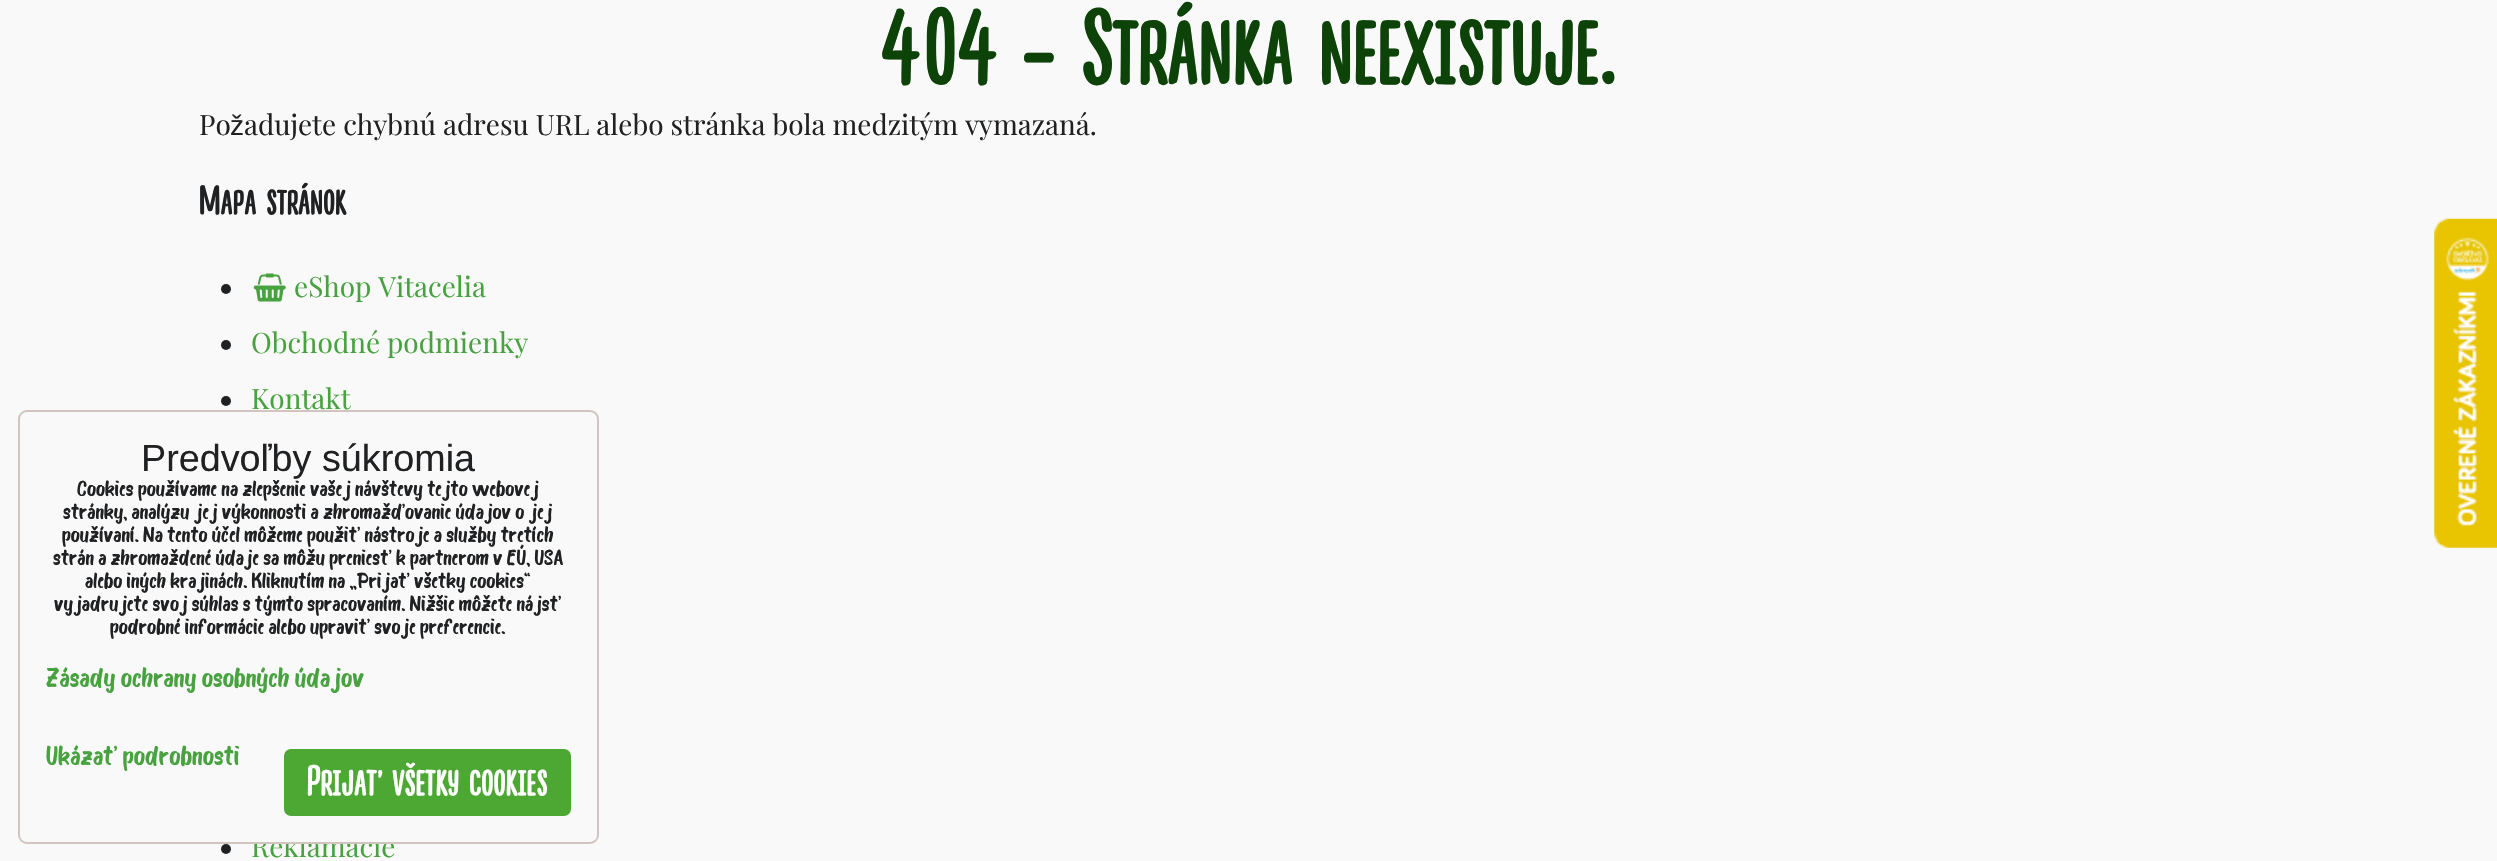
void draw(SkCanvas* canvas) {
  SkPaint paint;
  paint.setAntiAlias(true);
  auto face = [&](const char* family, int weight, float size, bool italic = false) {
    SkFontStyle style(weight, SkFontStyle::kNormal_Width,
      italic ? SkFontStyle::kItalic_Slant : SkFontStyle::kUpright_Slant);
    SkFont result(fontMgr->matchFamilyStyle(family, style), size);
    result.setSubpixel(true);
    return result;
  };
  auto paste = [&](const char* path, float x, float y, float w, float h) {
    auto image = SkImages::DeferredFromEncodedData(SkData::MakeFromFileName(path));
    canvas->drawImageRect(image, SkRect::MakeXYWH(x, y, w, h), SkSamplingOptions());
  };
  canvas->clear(0xfff9f9f9);
  paint.setColor(0xff202123);
  canvas->drawCircle(226, 289, 5, paint);
  paste("img/1.png", 253, 273, 33, 29);
  canvas->drawCircle(226, 345, 5, paint);
  canvas->drawCircle(226, 401, 5, paint);
  canvas->drawCircle(226, 849, 5, paint);
  paste("img/2.png", 2434, 218, 63, 330);
  auto f0 = face("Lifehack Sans", 700, 105);
  paint.setColor(0xff0d4209);
  canvas->drawString("404 - Stránka neexistuje.", 880, 83, f0, paint);
  auto f1 = face("Playfair Display", 400, 28);
  paint.setColor(0xff202123);
  canvas->drawString("Po", 199, 135, f1, paint);
  auto f2 = face("Liberation Sans", 400, 28);
  canvas->drawString("ž", 230, 135, f2, paint);
  canvas->drawString("adujete chybnú adresu URL alebo stránka bola medzitým vymazaná.", 244, 135, f1, paint);
  auto f3 = face("Lifehack Sans", 700, 40.5f);
  canvas->drawString("Mapa stránok", 199, 214, f3, paint);
  paint.setColor(0xff48a23f);
  {
    const struct { const char* s; float x, y; } items[] = {
      {"eShop Vitacelia", 294, 297},
      {"Obchodné podmienky", 251, 353},
      {"Kontakt", 251, 409},
      {"Reklamácie", 251, 857},
    };
    for (auto [s, x, y] : items) {
      canvas->drawString(s, x, y, f1, paint);
    }
  }
  paint.setColor(0xfff9f9f9);
  canvas->drawRoundRect(SkRect::MakeXYWH(19, 411, 579, 432), 8, 8, paint);
  paint.setStroke(true);
  paint.setStrokeWidth(2);
  paint.setColor(0xffd2c5bf);
  canvas->drawRoundRect(SkRect::MakeXYWH(19, 411, 579, 432), 8, 8, paint);
  auto f4 = face("Liberation Sans", 400, 37.75f);
  paint.setStroke(false);
  paint.setColor(0xff202123);
  canvas->drawString("Predvoľby súkromia", 141, 471, f4, paint);
  auto f5 = face("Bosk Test", 400, 21);
  {
    const struct { const char* s; float x, y; } items[] = {
      {"Cookies používame na zlepšenie vašej návštevy tejto webovej", 77, 496},
      {"stránky, analýzu jej výkonnosti a zhromažďovanie údajov o jej", 63, 519},
      {"používaní. Na tento účel môžeme použiť nástroje a služby tretích", 62, 542},
      {"strán a zhromaždené údaje sa môžu preniesť k partnerom v EÚ, USA", 53, 565},
      {"alebo iných krajinách. Kliknutím na „Prijať všetky cookies“", 85, 588},
      {"vyjadrujete svoj súhlas s týmto spracovaním. Nižšie môžete nájsť", 54, 611},
      {"podrobné informácie alebo upraviť svoje preferencie.", 110, 634},
    };
    for (auto [s, x, y] : items) {
      canvas->drawString(s, x, y, f5, paint);
    }
  }
  auto f6 = face("Bosk Test", 400, 26.25f);
  paint.setColor(0xff48a23f);
  canvas->drawString("Zásady ochrany osobných údajov", 46, 687, f6, paint);
  canvas->drawString("Ukázať podrobnosti", 46, 765, f6, paint);
  paint.setColor(0xff4ca733);
  canvas->drawRoundRect(SkRect::MakeXYWH(284, 749, 287, 67), 7, 7, paint);
  auto f7 = face("Lifehack Sans", 700, 42);
  paint.setColor(0xffffffff);
  canvas->drawString("Prijať všetky cookies", 307, 795, f7, paint);
}
